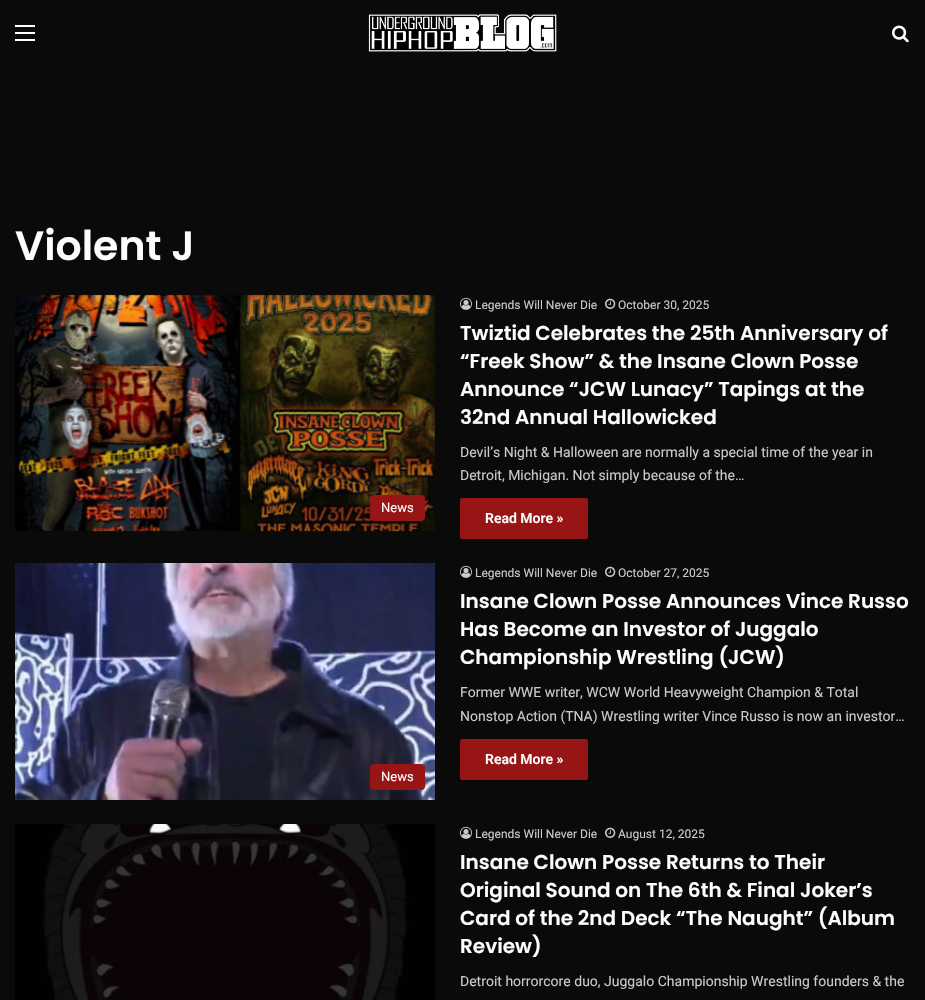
void draw(SkCanvas* canvas) {
  SkPaint paint;
  paint.setAntiAlias(true);
  auto face = [&](const char* family, int weight, float size, bool italic = false) {
    SkFontStyle style(weight, SkFontStyle::kNormal_Width,
      italic ? SkFontStyle::kItalic_Slant : SkFontStyle::kUpright_Slant);
    SkFont result(fontMgr->matchFamilyStyle(family, style), size);
    result.setSubpixel(true);
    return result;
  };
  auto paste = [&](const char* path, float x, float y, float w, float h) {
    auto image = SkImages::DeferredFromEncodedData(SkData::MakeFromFileName(path));
    canvas->drawImageRect(image, SkRect::MakeXYWH(x, y, w, h), SkSamplingOptions());
  };
  canvas->clear(0xff0a0a0a);
  {
    const struct { float x, y, w, h; SkColor color; } items[] = {
      {15, 32, 20, 2, 0xffffffff},
      {15, 25, 20, 2, 0xffffffff},
      {15, 39, 20, 2, 0xffffffff},
    };
    for (auto [x, y, w, h, color] : items) {
      paint.setColor(color);
      canvas->drawRect(SkRect::MakeXYWH(x, y, w, h), paint);
    }
  }
  paste("img/1.png", 368, 14, 189, 38);
  paste("img/2.png", 892, 25, 17, 18);
  paste("img/3.png", 15, 294, 420, 238);
  paint.setColor(0xff981515);
  canvas->drawRoundRect(SkRect::MakeXYWH(370, 495, 55, 26), 4, 4, paint);
  paste("img/4.png", 460, 297, 12, 13);
  paste("img/5.png", 605, 298, 11, 11);
  canvas->drawRoundRect(SkRect::MakeXYWH(460, 498, 128, 41), 2, 2, paint);
  paste("img/4.png", 460, 565, 12, 13);
  paste("img/5.png", 605, 566, 11, 11);
  canvas->drawRoundRect(SkRect::MakeXYWH(460, 739, 128, 41), 2, 2, paint);
  paste("img/6.png", 15, 563, 420, 237);
  canvas->drawRoundRect(SkRect::MakeXYWH(370, 764, 55, 26), 4, 4, paint);
  paste("img/7.png", 15, 824, 420, 176);
  paste("img/4.png", 460, 826, 12, 13);
  paste("img/5.png", 605, 827, 11, 11);
  auto f0 = face("Poppins", 600, 41);
  paint.setColor(0xfffdfdfd);
  canvas->drawString("Violent J", 15, 260, f0, paint);
  auto f1 = face("Roboto", 400, 13);
  canvas->drawString("News", 381, 512, f1, paint);
  auto f2 = face("Roboto", 400, 12);
  paint.setColor(0xffcacaca);
  canvas->drawString("Legends Will Never Die", 475, 309, f2, paint);
  canvas->drawString("October 30, 2025", 618, 309, f2, paint);
  auto f3 = face("Poppins", 600, 20);
  paint.setColor(0xfffdfdfd);
  {
    const struct { const char* s; float x, y; } items[] = {
      {"Twiztid Celebrates the 25th Anniversary of", 460, 340},
      {"“Freek Show” & the Insane Clown Posse", 460, 368},
      {"Announce “JCW Lunacy” Tapings at the", 460, 396},
      {"32nd Annual Hallowicked", 460, 424},
    };
    for (auto [s, x, y] : items) {
      canvas->drawString(s, x, y, f3, paint);
    }
  }
  auto f4 = face("Roboto", 400, 14);
  paint.setColor(0xffcacaca);
  canvas->drawString("Devil’s Night & Halloween are normally a special time of the year in", 460, 457, f4, paint);
  canvas->drawString("Detroit, Michigan. Not simply because of the…", 460, 480, f4, paint);
  auto f5 = face("Roboto", 600, 14);
  paint.setColor(0xfffdfdfd);
  canvas->drawString("Read More »", 485, 523, f5, paint);
  paint.setColor(0xffcacaca);
  canvas->drawString("Legends Will Never Die", 475, 577, f2, paint);
  canvas->drawString("October 27, 2025", 618, 577, f2, paint);
  paint.setColor(0xfffdfdfd);
  {
    const struct { const char* s; float x, y; } items[] = {
      {"Insane Clown Posse Announces Vince Russo", 460, 608},
      {"Has Become an Investor of Juggalo", 460, 636},
      {"Championship Wrestling (JCW)", 460, 664},
    };
    for (auto [s, x, y] : items) {
      canvas->drawString(s, x, y, f3, paint);
    }
  }
  paint.setColor(0xffcacaca);
  canvas->drawString("Former WWE writer, WCW World Heavyweight Champion & Total", 460, 697, f4, paint);
  canvas->drawString("Nonstop Action (TNA) Wrestling writer Vince Russo is now an investor…", 460, 721, f4, paint);
  paint.setColor(0xfffdfdfd);
  canvas->drawString("Read More »", 485, 764, f5, paint);
  canvas->drawString("News", 381, 781, f1, paint);
  paint.setColor(0xffcacaca);
  canvas->drawString("Legends Will Never Die", 475, 838, f2, paint);
  canvas->drawString("August 12, 2025", 618, 838, f2, paint);
  paint.setColor(0xfffdfdfd);
  {
    const struct { const char* s; float x, y; } items[] = {
      {"Insane Clown Posse Returns to Their", 460, 869},
      {"Original Sound on The 6th & Final Joker’s", 460, 897},
      {"Card of the 2nd Deck “The Naught” (Album", 460, 925},
      {"Review)", 460, 953},
    };
    for (auto [s, x, y] : items) {
      canvas->drawString(s, x, y, f3, paint);
    }
  }
  paint.setColor(0xffcacaca);
  canvas->drawString("Detroit horrorcore duo, Juggalo Championship Wrestling founders & the", 460, 986, f4, paint);
}
